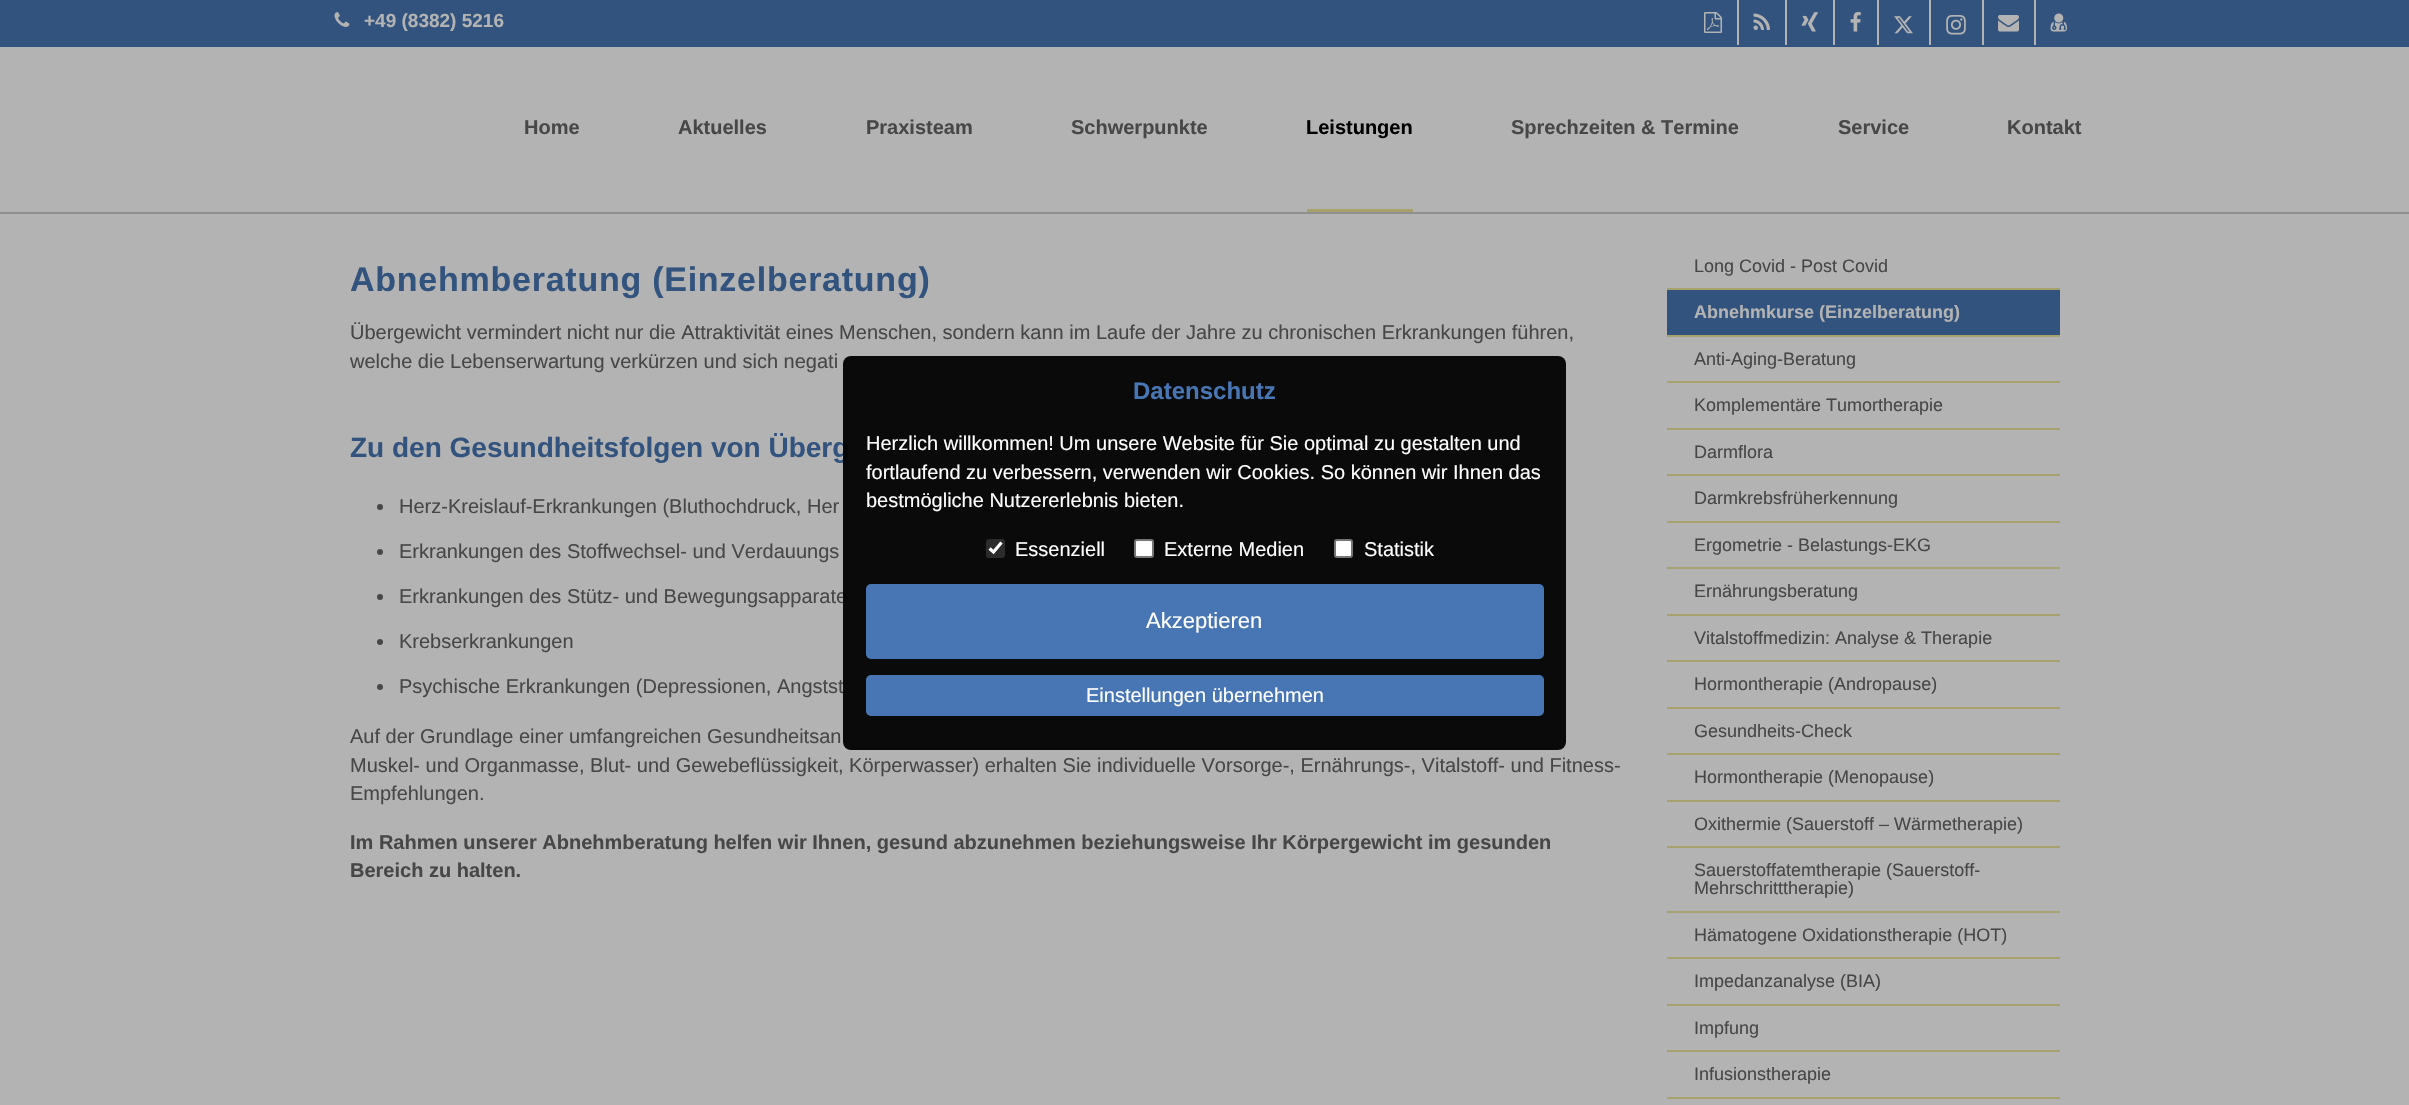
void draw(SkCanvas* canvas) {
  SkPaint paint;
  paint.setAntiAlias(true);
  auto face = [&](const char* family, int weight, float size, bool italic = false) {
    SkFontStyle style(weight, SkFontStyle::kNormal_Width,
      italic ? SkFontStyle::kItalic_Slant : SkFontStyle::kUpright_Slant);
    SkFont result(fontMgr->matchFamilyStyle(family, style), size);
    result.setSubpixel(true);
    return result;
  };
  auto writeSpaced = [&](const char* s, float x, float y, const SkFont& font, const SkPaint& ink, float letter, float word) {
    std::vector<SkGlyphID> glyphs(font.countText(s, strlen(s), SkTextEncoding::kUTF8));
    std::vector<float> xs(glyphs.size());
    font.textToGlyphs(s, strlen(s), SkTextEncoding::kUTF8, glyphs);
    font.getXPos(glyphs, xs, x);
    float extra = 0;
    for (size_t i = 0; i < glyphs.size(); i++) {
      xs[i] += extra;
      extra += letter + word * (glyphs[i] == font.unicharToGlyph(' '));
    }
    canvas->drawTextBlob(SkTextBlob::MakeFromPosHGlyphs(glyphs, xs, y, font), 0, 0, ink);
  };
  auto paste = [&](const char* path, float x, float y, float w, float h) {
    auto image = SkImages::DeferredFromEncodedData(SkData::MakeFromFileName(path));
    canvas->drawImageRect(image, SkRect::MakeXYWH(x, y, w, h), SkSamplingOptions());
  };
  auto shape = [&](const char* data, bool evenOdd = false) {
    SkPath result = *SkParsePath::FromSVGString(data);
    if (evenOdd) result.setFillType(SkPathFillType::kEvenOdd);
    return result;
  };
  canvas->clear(0xffb3b3b3);
  paint.setColor(0xff8f8f8f);
  canvas->drawRect(SkRect::MakeXYWH(0, 212, 2409, 2), paint);
  paint.setColor(0xff32537e);
  canvas->drawRect(SkRect::MakeXYWH(0, 0, 2409, 47), paint);
  paste("img/1.png", 334, 12, 16, 15);
  paint.setColor(0xffb3b3b3);
  canvas->drawRect(SkRect::MakeXYWH(1737, 0, 2, 45), paint);
  paste("img/2.png", 1704, 12, 18, 21);
  canvas->drawRect(SkRect::MakeXYWH(1785, 0, 2, 45), paint);
  paste("img/3.png", 1753, 13, 17, 17);
  canvas->drawRect(SkRect::MakeXYWH(1833, 0, 2, 45), paint);
  paste("img/4.png", 1801, 12, 17, 20);
  canvas->drawRect(SkRect::MakeXYWH(1877, 0, 2, 45), paint);
  paste("img/5.png", 1850, 12, 11, 20);
  canvas->drawRect(SkRect::MakeXYWH(1929, 0, 2, 45), paint);
  paste("img/6.png", 1894, 16, 19, 18);
  canvas->drawRect(SkRect::MakeXYWH(1982, 0, 2, 45), paint);
  paste("img/7.png", 1946, 15, 20, 20);
  canvas->drawRect(SkRect::MakeXYWH(2034, 0, 2, 45), paint);
  paste("img/8.png", 1998, 15, 21, 17);
  paste("img/9.png", 2050, 13, 17, 19);
  paint.setColor(0xffa7a26c);
  canvas->drawRect(SkRect::MakeXYWH(1307, 209, 106, 3), paint);
  paint.setColor(0xff474747);
  canvas->drawCircle(380, 507, 3, paint);
  canvas->drawCircle(380, 552, 3, paint);
  canvas->drawCircle(380, 597, 3, paint);
  canvas->drawCircle(380, 642, 3, paint);
  canvas->drawCircle(380, 687, 3, paint);
  {
    const struct { float x, y, w, h; SkColor color; } items[] = {
      {1667, 288, 393, 2, 0xffa7a26c},
      {1667, 290, 393, 45, 0xff32537e},
      {1667, 335, 393, 2, 0xffa7a26c},
      {1667, 381, 393, 2, 0xffa7a26c},
      {1667, 428, 393, 2, 0xffa7a26c},
      {1667, 474, 393, 2, 0xffa7a26c},
      {1667, 521, 393, 2, 0xffa7a26c},
      {1667, 567, 393, 2, 0xffa7a26c},
      {1667, 614, 393, 2, 0xffa7a26c},
      {1667, 660, 393, 2, 0xffa7a26c},
      {1667, 707, 393, 2, 0xffa7a26c},
      {1667, 753, 393, 2, 0xffa7a26c},
      {1667, 800, 393, 2, 0xffa7a26c},
      {1667, 846, 393, 2, 0xffa7a26c},
      {1667, 911, 393, 2, 0xffa7a26c},
      {1667, 957, 393, 2, 0xffa7a26c},
      {1667, 1004, 393, 2, 0xffa7a26c},
      {1667, 1050, 393, 2, 0xffa7a26c},
      {1667, 1097, 393, 2, 0xffa7a26c},
    };
    for (auto [x, y, w, h, color] : items) {
      paint.setColor(color);
      canvas->drawRect(SkRect::MakeXYWH(x, y, w, h), paint);
    }
  }
  auto f0 = face("Liberation Sans", 700, 19);
  paint.setColor(0xffb3b3b3);
  canvas->drawString("+49 (8382) 5216", 364, 27, f0, paint);
  auto f1 = face("Liberation Sans", 700, 20);
  paint.setColor(0xff474747);
  {
    const struct { const char* s; float x, y; } items[] = {
      {"Home", 524, 134},
      {"Aktuelles", 678, 134},
      {"Praxisteam", 866, 134},
      {"Schwerpunkte", 1071, 134},
    };
    for (auto [s, x, y] : items) {
      canvas->drawString(s, x, y, f1, paint);
    }
  }
  paint.setColor(0xff000000);
  canvas->drawString("Leistungen", 1306, 134, f1, paint);
  paint.setColor(0xff474747);
  {
    const struct { const char* s; float x, y; } items[] = {
      {"Sprechzeiten & Termine", 1511, 134},
      {"Service", 1838, 134},
      {"Kontakt", 2007, 134},
    };
    for (auto [s, x, y] : items) {
      canvas->drawString(s, x, y, f1, paint);
    }
  }
  auto f2 = face("Liberation Sans", 700, 34);
  paint.setColor(0xff32537e);
  writeSpaced("Abnehmberatung (Einzelberatung)", 350, 291, f2, paint, 0.75f, 0);
  auto f3 = face("Liberation Sans", 400, 20);
  paint.setColor(0xff474747);
  canvas->drawString("Übergewicht vermindert nicht nur die Attraktivität eines Menschen, sondern kann im Laufe der Jahre zu chronischen Erkrankungen führen,", 350, 339, f3, paint);
  canvas->drawString("welche die Lebenserwartung verkürzen und sich negati", 350, 368, f3, paint);
  auto f4 = face("Liberation Sans", 700, 28);
  paint.setColor(0xff32537e);
  canvas->drawString("Zu den Gesundheitsfolgen von Überg", 350, 457, f4, paint);
  paint.setColor(0xff474747);
  {
    const struct { const char* s; float x, y; } items[] = {
      {"Herz-Kreislauf-Erkrankungen (Bluthochdruck, Her", 399, 513},
      {"Erkrankungen des Stoffwechsel- und Verdauungs", 399, 558},
      {"Erkrankungen des Stütz- und Bewegungsapparate", 399, 603},
      {"Krebserkrankungen", 399, 648},
      {"Psychische Erkrankungen (Depressionen, Angstst", 399, 693},
      {"Auf der Grundlage einer umfangreichen Gesundheitsan", 350, 743},
      {"Muskel- und Organmasse, Blut- und Gewebeflüssigkeit, Körperwasser) erhalten Sie individuelle Vorsorge-, Ernährungs-, Vitalstoff- und Fitness-", 350, 772},
      {"Empfehlungen.", 350, 800},
    };
    for (auto [s, x, y] : items) {
      canvas->drawString(s, x, y, f3, paint);
    }
  }
  canvas->drawString("Im Rahmen unserer Abnehmberatung helfen wir Ihnen, gesund abzunehmen beziehungsweise Ihr Körpergewicht im gesunden", 350, 849, f1, paint);
  canvas->drawString("Bereich zu halten.", 350, 877, f1, paint);
  auto f5 = face("Liberation Sans", 400, 18);
  canvas->drawString("Long Covid - Post Covid", 1694, 272, f5, paint);
  auto f6 = face("Liberation Sans", 700, 18);
  paint.setColor(0xffb3b3b3);
  canvas->drawString("Abnehmkurse (Einzelberatung)", 1694, 318, f6, paint);
  paint.setColor(0xff474747);
  {
    const struct { const char* s; float x, y; } items[] = {
      {"Anti-Aging-Beratung", 1694, 365},
      {"Komplementäre Tumortherapie", 1694, 411},
      {"Darmflora", 1694, 458},
      {"Darmkrebsfrüherkennung", 1694, 504},
      {"Ergometrie - Belastungs-EKG", 1694, 551},
      {"Ernährungsberatung", 1694, 597},
      {"Vitalstoffmedizin: Analyse & Therapie", 1694, 644},
      {"Hormontherapie (Andropause)", 1694, 690},
      {"Gesundheits-Check", 1694, 737},
      {"Hormontherapie (Menopause)", 1694, 783},
      {"Oxithermie (Sauerstoff – Wärmetherapie)", 1694, 830},
      {"Sauerstoffatemtherapie (Sauerstoff-", 1694, 876},
      {"Mehrschritttherapie)", 1694, 894},
      {"Hämatogene Oxidationstherapie (HOT)", 1694, 941},
      {"Impedanzanalyse (BIA)", 1694, 987},
      {"Impfung", 1694, 1034},
      {"Infusionstherapie", 1694, 1080},
    };
    for (auto [s, x, y] : items) {
      canvas->drawString(s, x, y, f5, paint);
    }
  }
  paint.setColor(0xf2000000);
  canvas->drawRoundRect(SkRect::MakeXYWH(843, 356, 723, 394), 8, 8, paint);
  auto f7 = face("Liberation Sans", 700, 24);
  paint.setColor(0xff4876b4);
  canvas->drawString("Datenschutz", 1133, 399, f7, paint);
  paint.setColor(0xffffffff);
  {
    const struct { const char* s; float x, y; } items[] = {
      {"Herzlich willkommen! Um unsere Website für Sie optimal zu gestalten und", 866, 450},
      {"fortlaufend zu verbessern, verwenden wir Cookies. So können wir Ihnen das", 866, 479},
      {"bestmögliche Nutzererlebnis bieten.", 866, 507},
    };
    for (auto [s, x, y] : items) {
      canvas->drawString(s, x, y, f3, paint);
    }
  }
  paint.setColor(0x4d767676);
  canvas->drawRoundRect(SkRect::MakeXYWH(986, 539, 19, 19), 3, 3, paint);
  paint.setStroke(true);
  paint.setStrokeWidth(3.1f);
  paint.setColor(0xffffffff);
  canvas->drawPath(shape("M989.5 548.5L993.5 552L1001.5 542.5"), paint);
  paint.setStroke(false);
  canvas->drawString("Essenziell", 1015, 556, f3, paint);
  canvas->drawRoundRect(SkRect::MakeXYWH(1135, 540, 18, 17), 2, 2, paint);
  paint.setStroke(true);
  paint.setStrokeWidth(2);
  paint.setColor(0xff767676);
  canvas->drawRoundRect(SkRect::MakeXYWH(1135, 540, 18, 17), 2, 2, paint);
  paint.setStroke(false);
  paint.setColor(0xffffffff);
  canvas->drawString("Externe Medien", 1164, 556, f3, paint);
  canvas->drawRoundRect(SkRect::MakeXYWH(1335, 540, 17, 17), 2, 2, paint);
  paint.setStroke(true);
  paint.setColor(0xff767676);
  canvas->drawRoundRect(SkRect::MakeXYWH(1335, 540, 17, 17), 2, 2, paint);
  paint.setStroke(false);
  paint.setColor(0xffffffff);
  canvas->drawString("Statistik", 1364, 556, f3, paint);
  paint.setColor(0xff4876b4);
  canvas->drawRoundRect(SkRect::MakeXYWH(866, 584, 678, 75), 5, 5, paint);
  auto f8 = face("Liberation Sans", 400, 22);
  paint.setColor(0xffffffff);
  canvas->drawString("Akzeptieren", 1146, 628, f8, paint);
  paint.setColor(0xff4876b4);
  canvas->drawRoundRect(SkRect::MakeXYWH(866, 675, 678, 41), 5, 5, paint);
  paint.setColor(0xffffffff);
  canvas->drawString("Einstellungen übernehmen", 1086, 702, f3, paint);
}
